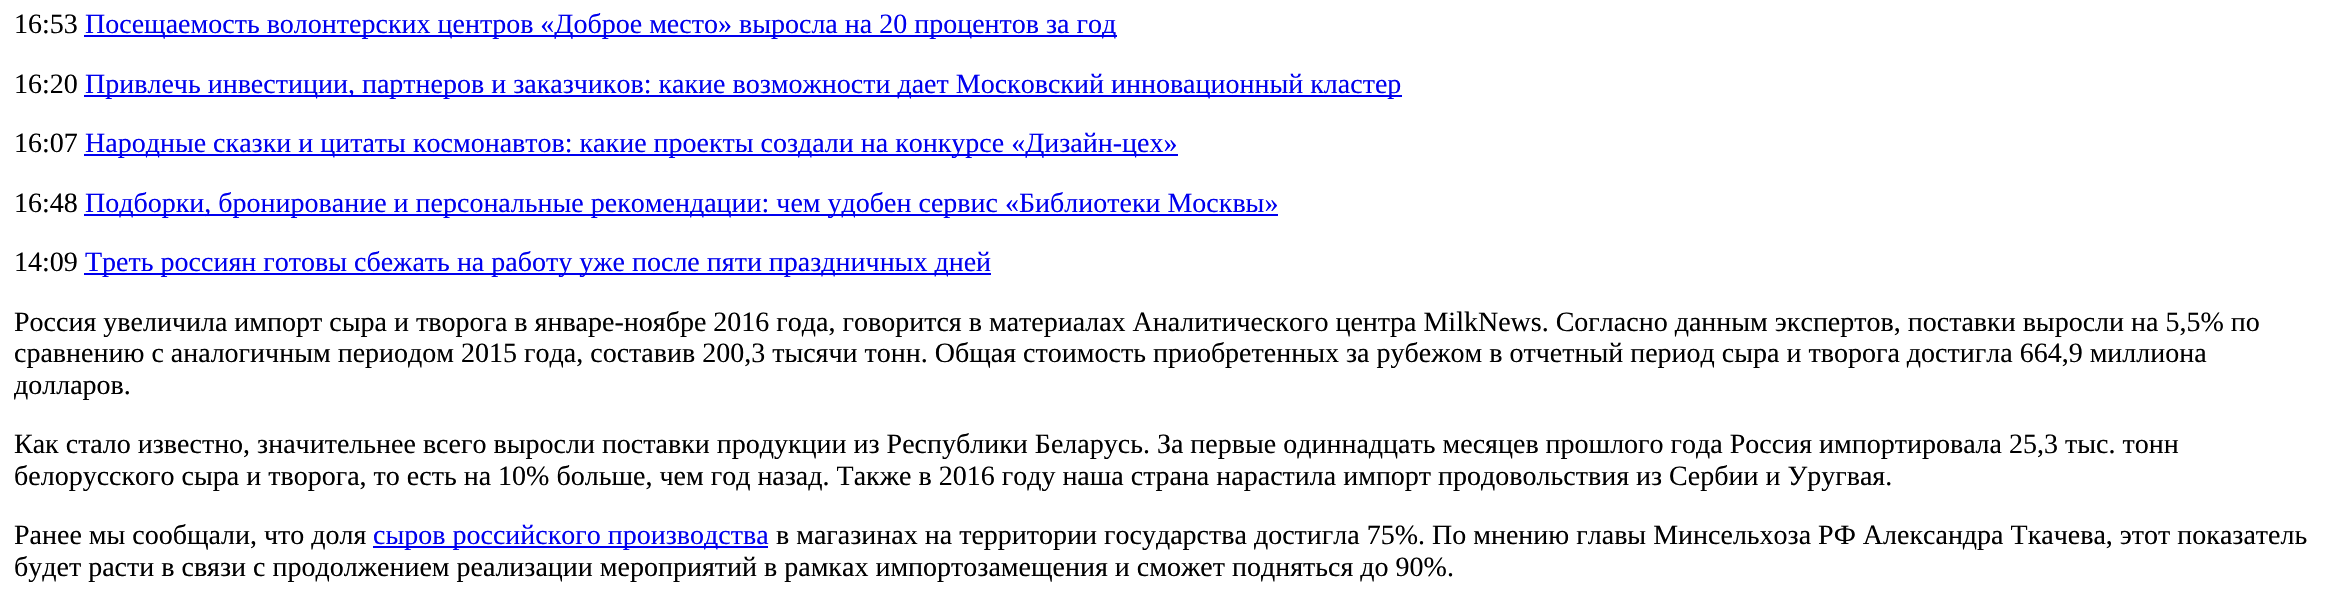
void draw(SkCanvas* canvas) {
  SkPaint paint;
  paint.setAntiAlias(true);
  auto face = [&](const char* family, int weight, float size, bool italic = false) {
    SkFontStyle style(weight, SkFontStyle::kNormal_Width,
      italic ? SkFontStyle::kItalic_Slant : SkFontStyle::kUpright_Slant);
    SkFont result(fontMgr->matchFamilyStyle(family, style), size);
    result.setSubpixel(true);
    return result;
  };
  canvas->clear(0xffffffff);
  {
    const struct { float x, y, w, h; SkColor color; } items[] = {
      {84, 35, 1033, 2, 0xff0000ee},
      {84, 95, 1318, 2, 0xff0000ee},
      {84, 154, 1094, 2, 0xff0000ee},
      {84, 214, 1194, 2, 0xff0000ee},
      {84, 273, 907, 2, 0xff0000ee},
      {373, 546, 395, 2, 0xff0000ee},
    };
    for (auto [x, y, w, h, color] : items) {
      paint.setColor(color);
      canvas->drawRect(SkRect::MakeXYWH(x, y, w, h), paint);
    }
  }
  auto f0 = face("Liberation Serif", 400, 28);
  paint.setColor(0xff000000);
  canvas->drawString("16:53", 14, 33, f0, paint);
  paint.setColor(0xff0000ee);
  canvas->drawString("Посещаемость волонтерских центров «Доброе место» выросла на 20 процентов за год", 85, 33, f0, paint);
  paint.setColor(0xff000000);
  canvas->drawString("16:20", 14, 93, f0, paint);
  paint.setColor(0xff0000ee);
  canvas->drawString("Привлечь инвестиции, партнеров и заказчиков: какие возможности дает Московский инновационный кластер", 85, 93, f0, paint);
  paint.setColor(0xff000000);
  canvas->drawString("16:07", 14, 152, f0, paint);
  paint.setColor(0xff0000ee);
  canvas->drawString("Народные сказки и цитаты космонавтов: какие проекты создали на конкурсе «Дизайн-цех»", 85, 152, f0, paint);
  paint.setColor(0xff000000);
  canvas->drawString("16:48", 14, 212, f0, paint);
  paint.setColor(0xff0000ee);
  canvas->drawString("Подборки, бронирование и персональные рекомендации: чем удобен сервис «Библиотеки Москвы»", 85, 212, f0, paint);
  paint.setColor(0xff000000);
  canvas->drawString("14:09", 14, 271, f0, paint);
  paint.setColor(0xff0000ee);
  canvas->drawString("Треть россиян готовы сбежать на работу уже после пяти праздничных дней", 85, 271, f0, paint);
  paint.setColor(0xff000000);
  {
    const struct { const char* s; float x, y; } items[] = {
      {"Россия увеличила импорт сыра и творога в январе-ноябре 2016 года, говорится в материалах Аналитического центра MilkNews. Согласно данным экспертов, поставки выросли на 5,5% по", 14, 331},
      {"сравнению с аналогичным периодом 2015 года, составив 200,3 тысячи тонн. Общая стоимость приобретенных за рубежом в отчетный период сыра и творога достигла 664,9 миллиона", 14, 362},
      {"долларов.", 14, 394},
      {"Как стало известно, значительнее всего выросли поставки продукции из Республики Беларусь. За первые одиннадцать месяцев прошлого года Россия импортировала 25,3 тыс. тонн", 14, 453},
      {"белорусского сыра и творога, то есть на 10% больше, чем год назад. Также в 2016 году наша страна нарастила импорт продовольствия из Сербии и Уругвая.", 14, 485},
      {"Ранее мы сообщали, что доля", 14, 544},
    };
    for (auto [s, x, y] : items) {
      canvas->drawString(s, x, y, f0, paint);
    }
  }
  paint.setColor(0xff0000ee);
  canvas->drawString("сыров российского производства", 373, 544, f0, paint);
  paint.setColor(0xff000000);
  canvas->drawString("в магазинах на территории государства достигла 75%. По мнению главы Минсельхоза РФ Александра Ткачева, этот показатель", 776, 544, f0, paint);
  canvas->drawString("будет расти в связи с продолжением реализации мероприятий в рамках импортозамещения и сможет подняться до 90%.", 14, 576, f0, paint);
}
